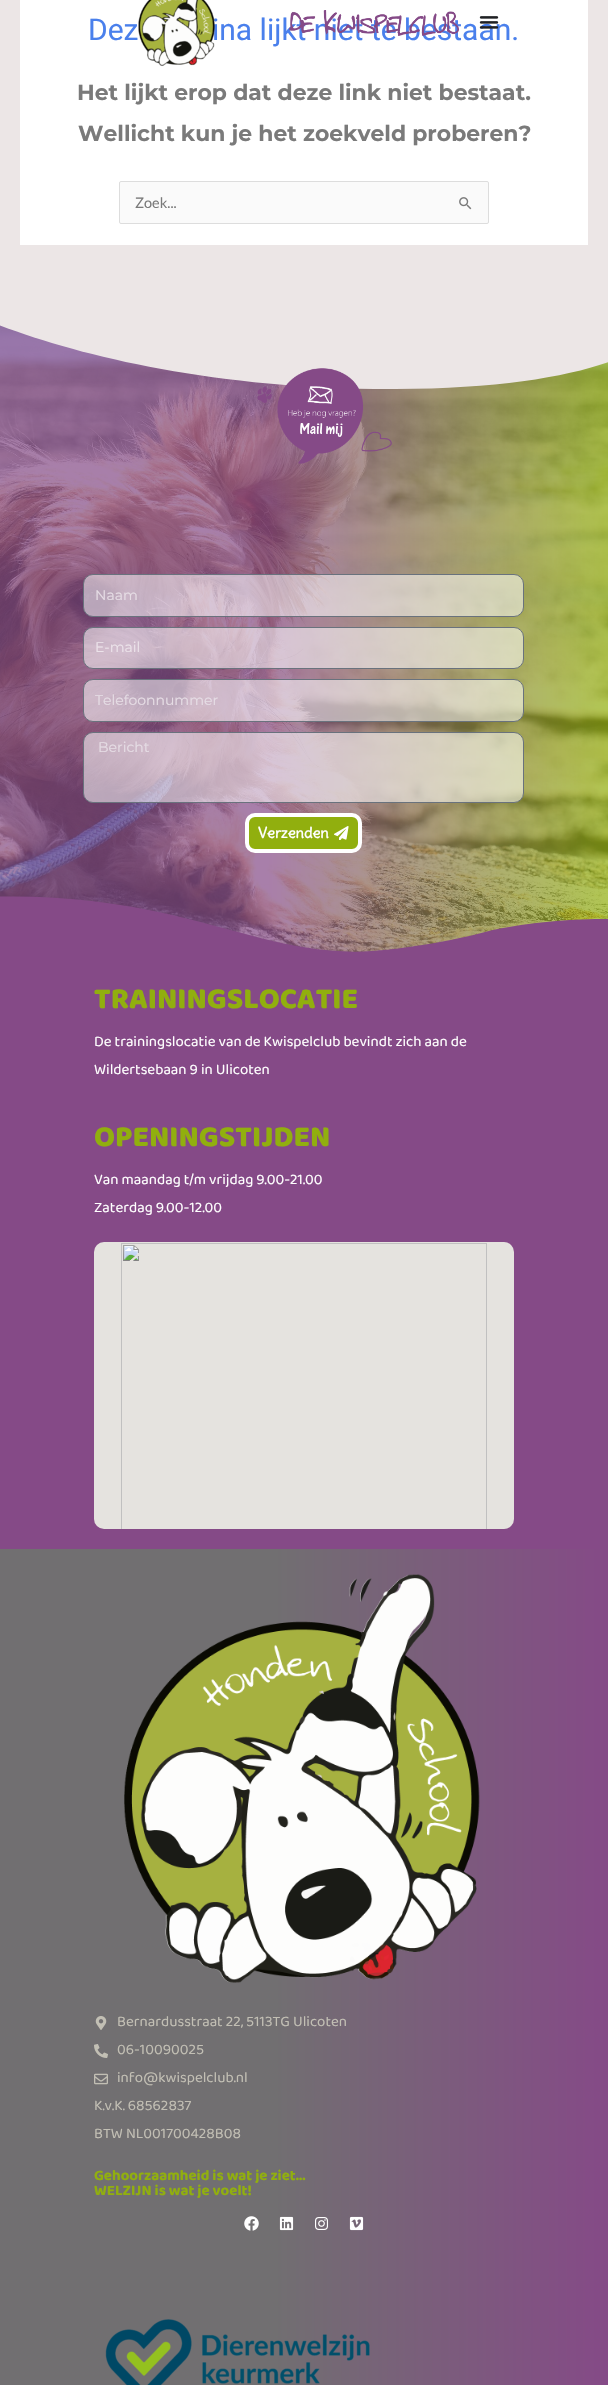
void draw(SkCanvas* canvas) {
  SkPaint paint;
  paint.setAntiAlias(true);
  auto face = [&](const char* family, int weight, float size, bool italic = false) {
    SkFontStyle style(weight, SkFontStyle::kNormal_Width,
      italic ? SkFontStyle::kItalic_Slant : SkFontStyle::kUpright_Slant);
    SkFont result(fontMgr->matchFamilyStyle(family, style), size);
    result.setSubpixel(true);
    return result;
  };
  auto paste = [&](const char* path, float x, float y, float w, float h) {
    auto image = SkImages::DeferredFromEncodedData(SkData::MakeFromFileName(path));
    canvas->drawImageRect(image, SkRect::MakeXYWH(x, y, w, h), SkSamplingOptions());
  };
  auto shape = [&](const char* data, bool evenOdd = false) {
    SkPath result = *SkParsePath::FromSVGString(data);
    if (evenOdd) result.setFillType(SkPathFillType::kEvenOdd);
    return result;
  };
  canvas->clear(0xffece6e6);
  paint.setColor(0xffffffff);
  canvas->drawRect(SkRect::MakeXYWH(20, 0, 568, 245), paint);
  paint.setColor(0xfffafafa);
  canvas->drawRoundRect(SkRect::MakeXYWH(119.5f, 181.5f, 369, 42), 1.5f, 1.5f, paint);
  paint.setStroke(true);
  paint.setStrokeWidth(1);
  paint.setColor(0xffdddddd);
  canvas->drawRoundRect(SkRect::MakeXYWH(119.5f, 181.5f, 369, 42), 1.5f, 1.5f, paint);
  paste("img/4.png", 459, 197, 13, 13);
  paste("img/5.png", 0, 325, 608, 627);
  paint.setStroke(false);
  paint.setColor(0xffece6e6);
  canvas->drawPath(shape("M-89 265V273C-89 296 100 390 395 389C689 388 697 296 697 273V265Z"), paint);
  paste("img/6.png", 257, 368, 135, 96);
  paint.setColor(0x8affffff);
  canvas->drawRoundRect(SkRect::MakeXYWH(83.5f, 574.5f, 440, 42), 9.5f, 9.5f, paint);
  paint.setStroke(true);
  paint.setColor(0xff69727d);
  canvas->drawRoundRect(SkRect::MakeXYWH(83.5f, 574.5f, 440, 42), 9.5f, 9.5f, paint);
  paint.setStroke(false);
  paint.setColor(0x8affffff);
  canvas->drawRoundRect(SkRect::MakeXYWH(83.5f, 627.5f, 440, 41), 9.5f, 9.5f, paint);
  paint.setStroke(true);
  paint.setColor(0xff69727d);
  canvas->drawRoundRect(SkRect::MakeXYWH(83.5f, 627.5f, 440, 41), 9.5f, 9.5f, paint);
  paint.setStroke(false);
  paint.setColor(0x8affffff);
  canvas->drawRoundRect(SkRect::MakeXYWH(83.5f, 679.5f, 440, 42), 9.5f, 9.5f, paint);
  paint.setStroke(true);
  paint.setColor(0xff69727d);
  canvas->drawRoundRect(SkRect::MakeXYWH(83.5f, 679.5f, 440, 42), 9.5f, 9.5f, paint);
  paint.setStroke(false);
  paint.setColor(0x8affffff);
  canvas->drawRoundRect(SkRect::MakeXYWH(83.5f, 732.5f, 440, 70), 9.5f, 9.5f, paint);
  paint.setStroke(true);
  paint.setColor(0xff69727d);
  canvas->drawRoundRect(SkRect::MakeXYWH(83.5f, 732.5f, 440, 70), 9.5f, 9.5f, paint);
  paint.setStroke(false);
  paint.setColor(0xff91af0e);
  canvas->drawRoundRect(SkRect::MakeXYWH(247, 815, 113, 36), 8, 8, paint);
  paint.setStroke(true);
  paint.setStrokeWidth(4);
  paint.setColor(0xffffffff);
  canvas->drawRoundRect(SkRect::MakeXYWH(247, 815, 113, 36), 8, 8, paint);
  paste("img/7.png", 334, 826, 15, 14);
  paint.setStroke(false);
  paint.setColor(0xff854a87);
  canvas->drawPath(shape("M372 951C303 956 238 930 172 915C74 892-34 889-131 914V955H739V937C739 937 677 918 601 919C567 919 521 923 485 932C466 937 439 943 415 946C392 950 381 950 372 951Z"), paint);
  canvas->drawRect(SkRect::MakeXYWH(0, 955, 608, 594), paint);
  paste("img/8.png", 94, 1242, 420, 287);
  {
    const SkColor colors[] = {0xff854a87, 0xff716f71};
    const float stops[] = {0, 0.55f};
    const SkPoint ends[] = {{608, 2015}, {0, 2015}};
    paint.setShader(SkGradientShader::MakeLinear(ends, colors, stops, 2, SkTileMode::kClamp));
    paint.setAlpha(255);
  }
  canvas->drawRect(SkRect::MakeXYWH(0, 1549, 608, 836), paint);
  paste("img/9.png", 124, 1574, 356, 409);
  paste("img/10.png", 95, 2016, 12, 14);
  paste("img/11.png", 94, 2044, 14, 14);
  paste("img/12.png", 94, 2073, 14, 12);
  paste("img/13.png", 244, 2216, 15, 15);
  paste("img/14.png", 279, 2216, 15, 15);
  paste("img/15.png", 315, 2217, 13, 13);
  paste("img/16.png", 349, 2216, 15, 15);
  paste("img/17.png", 105, 2319, 265, 66);
  auto f0 = face("Roboto", 400, 30);
  paint.setShader(nullptr);
  paint.setColor(0xff4a80ec);
  canvas->drawString("Dez", 88, 40, f0, paint);
  canvas->drawString("ina lijkt niet te bestaan.", 212, 40, f0, paint);
  paste("img/3.png", 479, 16, 20, 13);
  paste("img/2.png", 289, 10, 170, 26);
  paste("img/1.png", 138, 0, 77, 67);
  auto f1 = face("Montserrat", 700, 21.9f);
  paint.setColor(0xff7a7a7a);
  canvas->drawString("Het lijkt erop dat deze link niet bestaat.", 77, 100, f1, paint);
  canvas->drawString("Wellicht kun je het zoekveld proberen?", 78, 141, f1, paint);
  auto f2 = face("Lato", 400, 14.5f);
  canvas->drawString("Zoek...", 135, 208, f2, paint);
  auto f3 = face("Montserrat", 400, 14);
  paint.setColor(0xffe6dde5);
  canvas->drawString("Naam", 95, 600, f3, paint);
  paint.setColor(0xffece3ea);
  canvas->drawString("E-mail", 95, 652, f3, paint);
  paint.setColor(0xffe6dde5);
  canvas->drawString("Telefoonnummer", 95, 705, f3, paint);
  canvas->drawString("Bericht", 98, 752, f3, paint);
  auto f4 = face("Delius", 700, 14.5f);
  paint.setColor(0xffffffff);
  canvas->drawString("Verzenden", 258, 838, f4, paint);
  auto f5 = face("Baloo 2", 800, 30);
  paint.setColor(0xff91af0e);
  canvas->drawString("TRAININGSLOCATIE", 94, 1008, f5, paint);
  auto f6 = face("Baloo 2", 400, 15);
  paint.setColor(0xffffffff);
  canvas->drawString("De trainingslocatie van de Kwispelclub bevindt zich aan de", 94, 1046, f6, paint);
  canvas->drawString("Wildertsebaan 9 in Ulicoten", 94, 1074, f6, paint);
  paint.setColor(0xff91af0e);
  canvas->drawString("OPENINGSTIJDEN", 94, 1146, f5, paint);
  paint.setColor(0xffffffff);
  canvas->drawString("Van maandag t/m vrijdag 9.00-21.00", 94, 1184, f6, paint);
  canvas->drawString("Zaterdag 9.00-12.00", 94, 1212, f6, paint);
  paint.setColor(0xffc2bfb4);
  {
    const struct { const char* s; float x, y; } items[] = {
      {"Bernardusstraat 22, 5113TG Ulicoten", 117, 2026},
      {"06-10090025", 117, 2054},
      {"info@kwispelclub.nl", 117, 2082},
      {"K.v.K. 68562837", 94, 2110},
      {"BTW NL001700428B08", 94, 2138},
    };
    for (auto [s, x, y] : items) {
      canvas->drawString(s, x, y, f6, paint);
    }
  }
  auto f7 = face("Baloo 2", 700, 15);
  paint.setColor(0xff91af0e);
  canvas->drawString("Gehoorzaamheid is wat je ziet…", 94, 2180, f7, paint);
  canvas->drawString("WELZIJN is wat je voelt!", 94, 2195, f7, paint);
}
